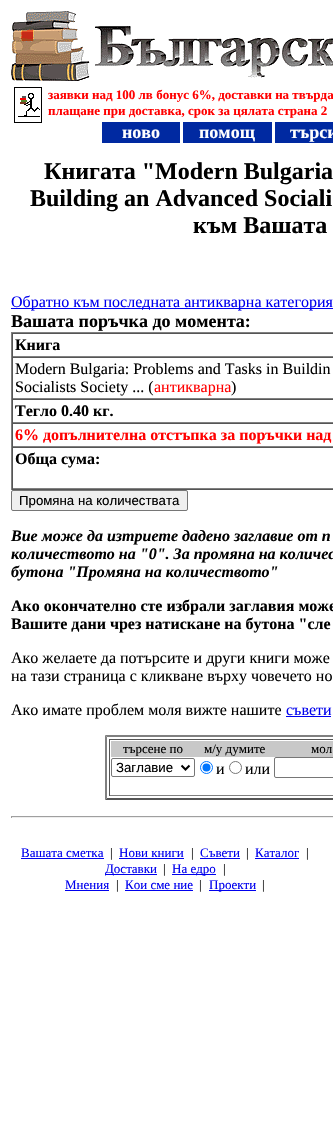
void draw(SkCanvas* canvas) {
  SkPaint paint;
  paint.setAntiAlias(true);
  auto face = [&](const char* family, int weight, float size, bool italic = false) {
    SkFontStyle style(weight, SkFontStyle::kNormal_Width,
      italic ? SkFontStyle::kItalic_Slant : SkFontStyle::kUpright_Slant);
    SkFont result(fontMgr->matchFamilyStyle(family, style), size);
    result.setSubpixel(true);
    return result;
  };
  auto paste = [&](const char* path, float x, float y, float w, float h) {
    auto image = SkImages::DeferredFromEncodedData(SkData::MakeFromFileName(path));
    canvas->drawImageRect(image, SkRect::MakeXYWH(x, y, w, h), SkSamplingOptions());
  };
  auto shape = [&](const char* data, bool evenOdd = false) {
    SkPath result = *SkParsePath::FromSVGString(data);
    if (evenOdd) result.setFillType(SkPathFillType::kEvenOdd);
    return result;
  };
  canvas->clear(0xffffffff);
  paste("img/1.png", 11, 11, 322, 70);
  paste("img/2.png", 14, 87, 28, 36);
  {
    const struct { float x, y, w, h; SkColor color; } items[] = {
      {102, 122, 78, 21, 0xff0029a1},
      {183, 122, 89, 21, 0xff0029a1},
      {275, 122, 58, 21, 0xff0029a1},
      {11, 308, 322, 1, 0xff0000ee},
      {11, 332, 322, 1, 0xff808080},
      {11, 489, 322, 1, 0xff555555},
      {11, 332, 1, 158, 0xff808080},
      {12, 333, 321, 1, 0xff555555},
      {12, 356, 321, 1, 0xff808080},
      {12, 333, 1, 24, 0xff555555},
      {12, 357, 321, 1, 0xff555555},
      {12, 398, 321, 1, 0xff808080},
      {12, 357, 1, 42, 0xff555555},
      {12, 399, 321, 1, 0xff555555},
      {12, 422, 321, 1, 0xff808080},
      {12, 399, 1, 24, 0xff555555},
      {12, 423, 321, 1, 0xff555555},
      {12, 446, 321, 1, 0xff808080},
      {12, 423, 1, 24, 0xff555555},
      {12, 447, 321, 1, 0xff555555},
      {12, 488, 321, 1, 0xff808080},
      {12, 447, 1, 42, 0xff555555},
    };
    for (auto [x, y, w, h, color] : items) {
      paint.setColor(color);
      canvas->drawRect(SkRect::MakeXYWH(x, y, w, h), paint);
    }
  }
  paint.setColor(0xffefefef);
  canvas->drawRoundRect(SkRect::MakeXYWH(11.5f, 490.5f, 176, 20), 1.5f, 1.5f, paint);
  paint.setStroke(true);
  paint.setStrokeWidth(1);
  paint.setColor(0xff767676);
  canvas->drawRoundRect(SkRect::MakeXYWH(11.5f, 490.5f, 176, 20), 1.5f, 1.5f, paint);
  paint.setStroke(false);
  paint.setColor(0xff0000ee);
  canvas->drawRect(SkRect::MakeXYWH(286, 716, 45, 1), paint);
  paint.setColor(0xff808080);
  canvas->drawPath(shape("M105 735H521L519 737H107Z"), paint);
  paint.setColor(0xff555555);
  canvas->drawPath(shape("M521 800H105L107 798H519Z"), paint);
  paint.setColor(0xff808080);
  canvas->drawPath(shape("M105 800V735L107 737V798Z"), paint);
  {
    const struct { float x, y, w, h; SkColor color; } items[] = {
      {109, 739, 224, 1, 0xff555555},
      {109, 795, 224, 1, 0xff808080},
      {109, 739, 1, 57, 0xff555555},
      {111, 741, 222, 16, 0xffc8c8c8},
    };
    for (auto [x, y, w, h, color] : items) {
      paint.setColor(color);
      canvas->drawRect(SkRect::MakeXYWH(x, y, w, h), paint);
    }
  }
  paint.setStroke(true);
  paint.setColor(0xff767676);
  canvas->drawRoundRect(SkRect::MakeXYWH(111.5f, 758.5f, 83, 18), 1.5f, 1.5f, paint);
  paint.setStrokeWidth(2);
  paint.setColor(0xff000000);
  canvas->drawPath(shape("M181.5 765.5L185.5 769.5L189.5 765.5"), paint);
  paint.setStrokeWidth(1);
  paint.setColor(0xff0075ff);
  canvas->drawCircle(206.5f, 767.5f, 6, paint);
  paint.setStroke(false);
  canvas->drawCircle(206.5f, 767.5f, 4, paint);
  paint.setStroke(true);
  paint.setColor(0xff767676);
  canvas->drawCircle(235.5f, 767.5f, 6, paint);
  canvas->drawRoundRect(SkRect::MakeXYWH(274.5f, 757.5f, 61, 20), 1.5f, 1.5f, paint);
  paint.setStroke(false);
  {
    const struct { float x, y, w, h; SkColor color; } items[] = {
      {11, 816, 322, 1, 0xff9f9f9f},
      {11, 817, 322, 1, 0xffeeeeee},
      {11, 816, 1, 2, 0xff9f9f9f},
      {21, 858, 83, 1, 0xff0000ee},
      {119, 858, 65, 1, 0xff0000ee},
      {200, 858, 40, 1, 0xff0000ee},
      {255, 858, 44, 1, 0xff0000ee},
      {105, 874, 52, 1, 0xff0000ee},
      {172, 874, 44, 1, 0xff0000ee},
      {65, 890, 44, 1, 0xff0000ee},
      {125, 890, 68, 1, 0xff0000ee},
      {209, 890, 47, 1, 0xff0000ee},
    };
    for (auto [x, y, w, h, color] : items) {
      paint.setColor(color);
      canvas->drawRect(SkRect::MakeXYWH(x, y, w, h), paint);
    }
  }
  auto f0 = face("Liberation Serif", 700, 13);
  paint.setColor(0xffff0000);
  canvas->drawString("заявки над 100 лв бонус 6%, доставки на твърда", 48, 99, f0, paint);
  canvas->drawString("плащане при доставка, срок за цялата страна 2", 48, 115, f0, paint);
  auto f1 = face("Liberation Serif", 700, 18);
  paint.setColor(0xffffffff);
  {
    const struct { const char* s; float x, y; } items[] = {
      {"ново", 122, 138},
      {"помощ", 199, 138},
      {"търси", 290, 138},
    };
    for (auto [s, x, y] : items) {
      canvas->drawString(s, x, y, f1, paint);
    }
  }
  auto f2 = face("Liberation Serif", 700, 24);
  paint.setColor(0xff000000);
  {
    const struct { const char* s; float x, y; } items[] = {
      {"Книгата \"Modern Bulgaria", 44, 179},
      {"Building an Advanced Sociali", 30, 206},
      {"към Вашата", 193, 233},
    };
    for (auto [s, x, y] : items) {
      canvas->drawString(s, x, y, f2, paint);
    }
  }
  auto f3 = face("Liberation Serif", 400, 16);
  paint.setColor(0xff0000ee);
  canvas->drawString("Обратно към последната антикварна категория", 11, 307, f3, paint);
  paint.setColor(0xff000000);
  canvas->drawString("Вашата поръчка до момента:", 11, 327, f1, paint);
  auto f4 = face("Liberation Serif", 700, 16);
  canvas->drawString("Книга", 15, 350, f4, paint);
  canvas->drawString("Modern Bulgaria: Problems and Tasks in Buildin", 15, 374, f3, paint);
  canvas->drawString("Socialists Society ... (", 15, 392, f3, paint);
  paint.setColor(0xffff0000);
  canvas->drawString("антикварна", 154, 392, f3, paint);
  paint.setColor(0xff000000);
  canvas->drawString(")", 231, 392, f3, paint);
  canvas->drawString("Тегло 0.40 кг.", 15, 416, f4, paint);
  paint.setColor(0xffff0000);
  canvas->drawString("6% допълнителна отстъпка за поръчки над", 15, 440, f4, paint);
  paint.setColor(0xff000000);
  canvas->drawString("Обща сума:", 15, 464, f4, paint);
  auto f5 = face("Liberation Sans", 400, 13.25f);
  canvas->drawString("Промяна на количествата", 19, 505, f5, paint);
  auto f6 = face("Liberation Serif", 700, 16, true);
  {
    const struct { const char* s; float x, y; } items[] = {
      {"Вие може да изтриете дадено заглавие от п", 11, 541},
      {"количеството на \"0\". За промяна на количес", 11, 559},
      {"бутона \"Промяна на количеството\"", 11, 577},
    };
    for (auto [s, x, y] : items) {
      canvas->drawString(s, x, y, f6, paint);
    }
  }
  canvas->drawString("Ако окончателно сте избрали заглавия може", 11, 611, f4, paint);
  canvas->drawString("Вашите дани чрез натискане на бутона \"сле", 11, 629, f4, paint);
  {
    const struct { const char* s; float x, y; } items[] = {
      {"Ако желаете да потърсите и други книги може", 11, 663},
      {"на тази страница с кликване върху човечето но", 11, 681},
      {"Ако имате проблем моля вижте нашите", 11, 715},
    };
    for (auto [s, x, y] : items) {
      canvas->drawString(s, x, y, f3, paint);
    }
  }
  paint.setColor(0xff0000ee);
  canvas->drawString("съвети", 286, 715, f3, paint);
  auto f7 = face("Liberation Serif", 400, 13);
  paint.setColor(0xff000000);
  {
    const struct { const char* s; float x, y; } items[] = {
      {"търсeне по", 123, 753},
      {"м/у думите", 204, 753},
      {"мол", 311, 753},
    };
    for (auto [s, x, y] : items) {
      canvas->drawString(s, x, y, f7, paint);
    }
  }
  canvas->drawString("Заглавие", 116, 772, f5, paint);
  canvas->drawString("и", 216, 774, f3, paint);
  canvas->drawString("или", 245, 774, f3, paint);
  paint.setColor(0xff0000ee);
  canvas->drawString("Вашата сметка", 21, 857, f7, paint);
  paint.setColor(0xff000000);
  canvas->drawString("|", 110, 857, f7, paint);
  paint.setColor(0xff0000ee);
  canvas->drawString("Нови книги", 119, 857, f7, paint);
  paint.setColor(0xff000000);
  canvas->drawString("|", 191, 857, f7, paint);
  paint.setColor(0xff0000ee);
  canvas->drawString("Съвети", 200, 857, f7, paint);
  paint.setColor(0xff000000);
  canvas->drawString("|", 246, 857, f7, paint);
  paint.setColor(0xff0000ee);
  canvas->drawString("Каталог", 255, 857, f7, paint);
  paint.setColor(0xff000000);
  canvas->drawString("|", 306, 857, f7, paint);
  paint.setColor(0xff0000ee);
  canvas->drawString("Доставки", 105, 873, f7, paint);
  paint.setColor(0xff000000);
  canvas->drawString("|", 163, 873, f7, paint);
  paint.setColor(0xff0000ee);
  canvas->drawString("На едро", 172, 873, f7, paint);
  paint.setColor(0xff000000);
  canvas->drawString("|", 223, 873, f7, paint);
  paint.setColor(0xff0000ee);
  canvas->drawString("Мнения", 65, 889, f7, paint);
  paint.setColor(0xff000000);
  canvas->drawString("|", 116, 889, f7, paint);
  paint.setColor(0xff0000ee);
  canvas->drawString("Кои сме ние", 125, 889, f7, paint);
  paint.setColor(0xff000000);
  canvas->drawString("|", 199, 889, f7, paint);
  paint.setColor(0xff0000ee);
  canvas->drawString("Проeкти", 209, 889, f7, paint);
  paint.setColor(0xff000000);
  canvas->drawString("|", 262, 889, f7, paint);
}
